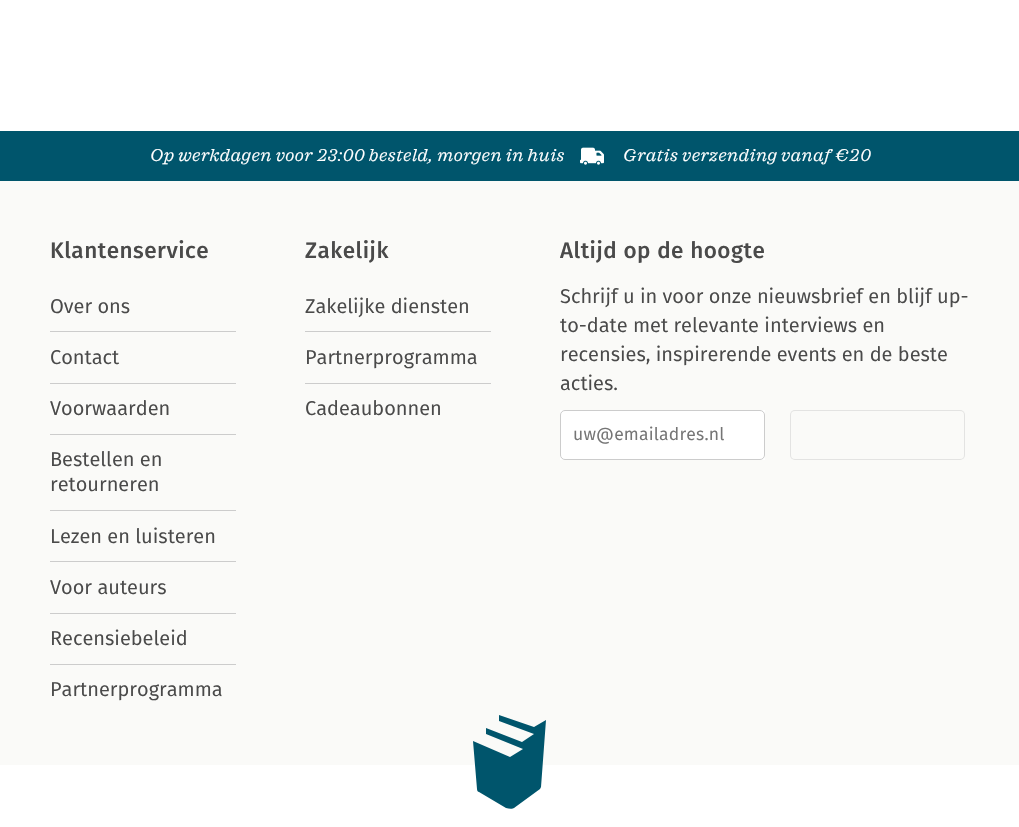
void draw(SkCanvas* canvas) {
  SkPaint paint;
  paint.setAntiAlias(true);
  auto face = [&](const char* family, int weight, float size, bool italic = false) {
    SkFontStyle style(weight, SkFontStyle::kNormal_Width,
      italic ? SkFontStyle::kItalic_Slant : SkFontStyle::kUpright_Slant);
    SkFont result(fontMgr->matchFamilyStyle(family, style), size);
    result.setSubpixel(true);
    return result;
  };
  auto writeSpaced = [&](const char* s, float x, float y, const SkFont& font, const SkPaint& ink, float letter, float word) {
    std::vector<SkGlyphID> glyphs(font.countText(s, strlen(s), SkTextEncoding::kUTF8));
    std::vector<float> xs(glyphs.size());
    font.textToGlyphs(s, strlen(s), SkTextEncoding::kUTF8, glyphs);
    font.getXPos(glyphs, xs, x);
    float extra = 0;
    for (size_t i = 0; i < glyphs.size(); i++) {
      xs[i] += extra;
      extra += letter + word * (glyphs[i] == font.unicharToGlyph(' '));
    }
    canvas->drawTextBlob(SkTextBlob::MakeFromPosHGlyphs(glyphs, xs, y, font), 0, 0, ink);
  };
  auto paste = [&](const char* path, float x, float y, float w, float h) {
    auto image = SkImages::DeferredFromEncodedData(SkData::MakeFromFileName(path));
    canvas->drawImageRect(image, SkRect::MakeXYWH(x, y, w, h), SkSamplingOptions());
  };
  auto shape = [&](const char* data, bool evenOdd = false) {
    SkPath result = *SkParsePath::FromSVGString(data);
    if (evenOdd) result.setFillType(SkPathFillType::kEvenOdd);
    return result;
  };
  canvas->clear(0xffffffff);
  paint.setColor(0xff00556c);
  canvas->drawRect(SkRect::MakeXYWH(0, 131, 1019, 50), paint);
  paste("img/1.png", 580, 147, 24, 18);
  {
    const struct { float x, y, w, h; SkColor color; } items[] = {
      {0, 181, 1019, 584, 0xfffafaf8},
      {50, 331, 186, 1, 0xffcccccc},
      {50, 383, 186, 1, 0xffcccccc},
      {50, 434, 186, 1, 0xffcccccc},
      {50, 510, 186, 1, 0xffcccccc},
      {50, 561, 186, 1, 0xffcccccc},
      {50, 613, 186, 1, 0xffcccccc},
      {50, 664, 186, 1, 0xffcccccc},
      {305, 331, 186, 1, 0xffcccccc},
      {305, 383, 186, 1, 0xffcccccc},
      {560, 410, 205, 50, 0xffffffff},
    };
    for (auto [x, y, w, h, color] : items) {
      paint.setColor(color);
      canvas->drawRect(SkRect::MakeXYWH(x, y, w, h), paint);
    }
  }
  paint.setStroke(true);
  paint.setStrokeWidth(1);
  paint.setColor(0xffcccccc);
  canvas->drawRoundRect(SkRect::MakeXYWH(560.5f, 410.5f, 204, 49), 4.5f, 4.5f, paint);
  paint.setStroke(false);
  paint.setColor(0xffe3e3e2);
  canvas->drawRoundRect(SkRect::MakeXYWH(790, 410, 175, 50), 5, 5, paint);
  {
    const SkColor colors[] = {0xfffafaf8, 0x00fafaf8};
    const float stops[] = {0.1f, 0.1f};
    paint.setShader(SkGradientShader::MakeRadial({878, 435}, 895, colors, stops, 2, SkTileMode::kClamp));
    paint.setAlpha(255);
  }
  canvas->drawRoundRect(SkRect::MakeXYWH(791, 411, 173, 48), 4, 4, paint);
  paint.setShader(nullptr);
  paint.setColor(0xff00556c);
  canvas->drawPath(shape("M540 789L514 808C513 809 509 809 506 808L479 792C478 792 477 791 477 789L473 741L510 757L523 749L486 734V728L522 742L534 734L499 721V715L534 727L546 720L541 787L540 789"), paint);
  auto f0 = face("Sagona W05", 400, 17.5f, true);
  paint.setColor(0xffffffff);
  writeSpaced("Op werkdagen voor 23:00 besteld, morgen in huis", 150, 161, f0, paint, 0.55f, 0);
  writeSpaced("Gratis verzending vanaf €20", 623, 161, f0, paint, 0.55f, 0);
  auto f1 = face("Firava", 500, 22.5f);
  paint.setColor(0xff4a4a4a);
  writeSpaced("Klantenservice", 50, 258, f1, paint, 0.5f, 0);
  auto f2 = face("Firava", 400, 20);
  {
    const struct { const char* s; float x, y; } items[] = {
      {"Over ons", 50, 313},
      {"Contact", 50, 364},
      {"Voorwaarden", 50, 415},
      {"Bestellen en", 50, 466},
      {"retourneren", 50, 491},
      {"Lezen en luisteren", 50, 543},
      {"Voor auteurs", 50, 594},
      {"Recensiebeleid", 50, 645},
      {"Partnerprogramma", 50, 696},
    };
    for (auto [s, x, y] : items) {
      canvas->drawString(s, x, y, f2, paint);
    }
  }
  writeSpaced("Zakelijk", 305, 258, f1, paint, 0.5f, 0);
  {
    const struct { const char* s; float x, y; } items[] = {
      {"Zakelijke diensten", 305, 313},
      {"Partnerprogramma", 305, 364},
      {"Cadeaubonnen", 305, 415},
    };
    for (auto [s, x, y] : items) {
      canvas->drawString(s, x, y, f2, paint);
    }
  }
  writeSpaced("Altijd op de hoogte", 560, 258, f1, paint, 0.5f, 0);
  {
    const struct { const char* s; float x, y; } items[] = {
      {"Schrijf u in voor onze nieuwsbrief en blijf up-", 560, 303},
      {"to-date met relevante interviews en", 560, 332},
      {"recensies, inspirerende events en de beste", 560, 361},
      {"acties.", 560, 390},
    };
    for (auto [s, x, y] : items) {
      canvas->drawString(s, x, y, f2, paint);
    }
  }
  auto f3 = face("Firava", 400, 17.5f);
  paint.setColor(0xff757575);
  writeSpaced("uw@emailadres.nl", 573, 440, f3, paint, 0.2f, 0);
}
